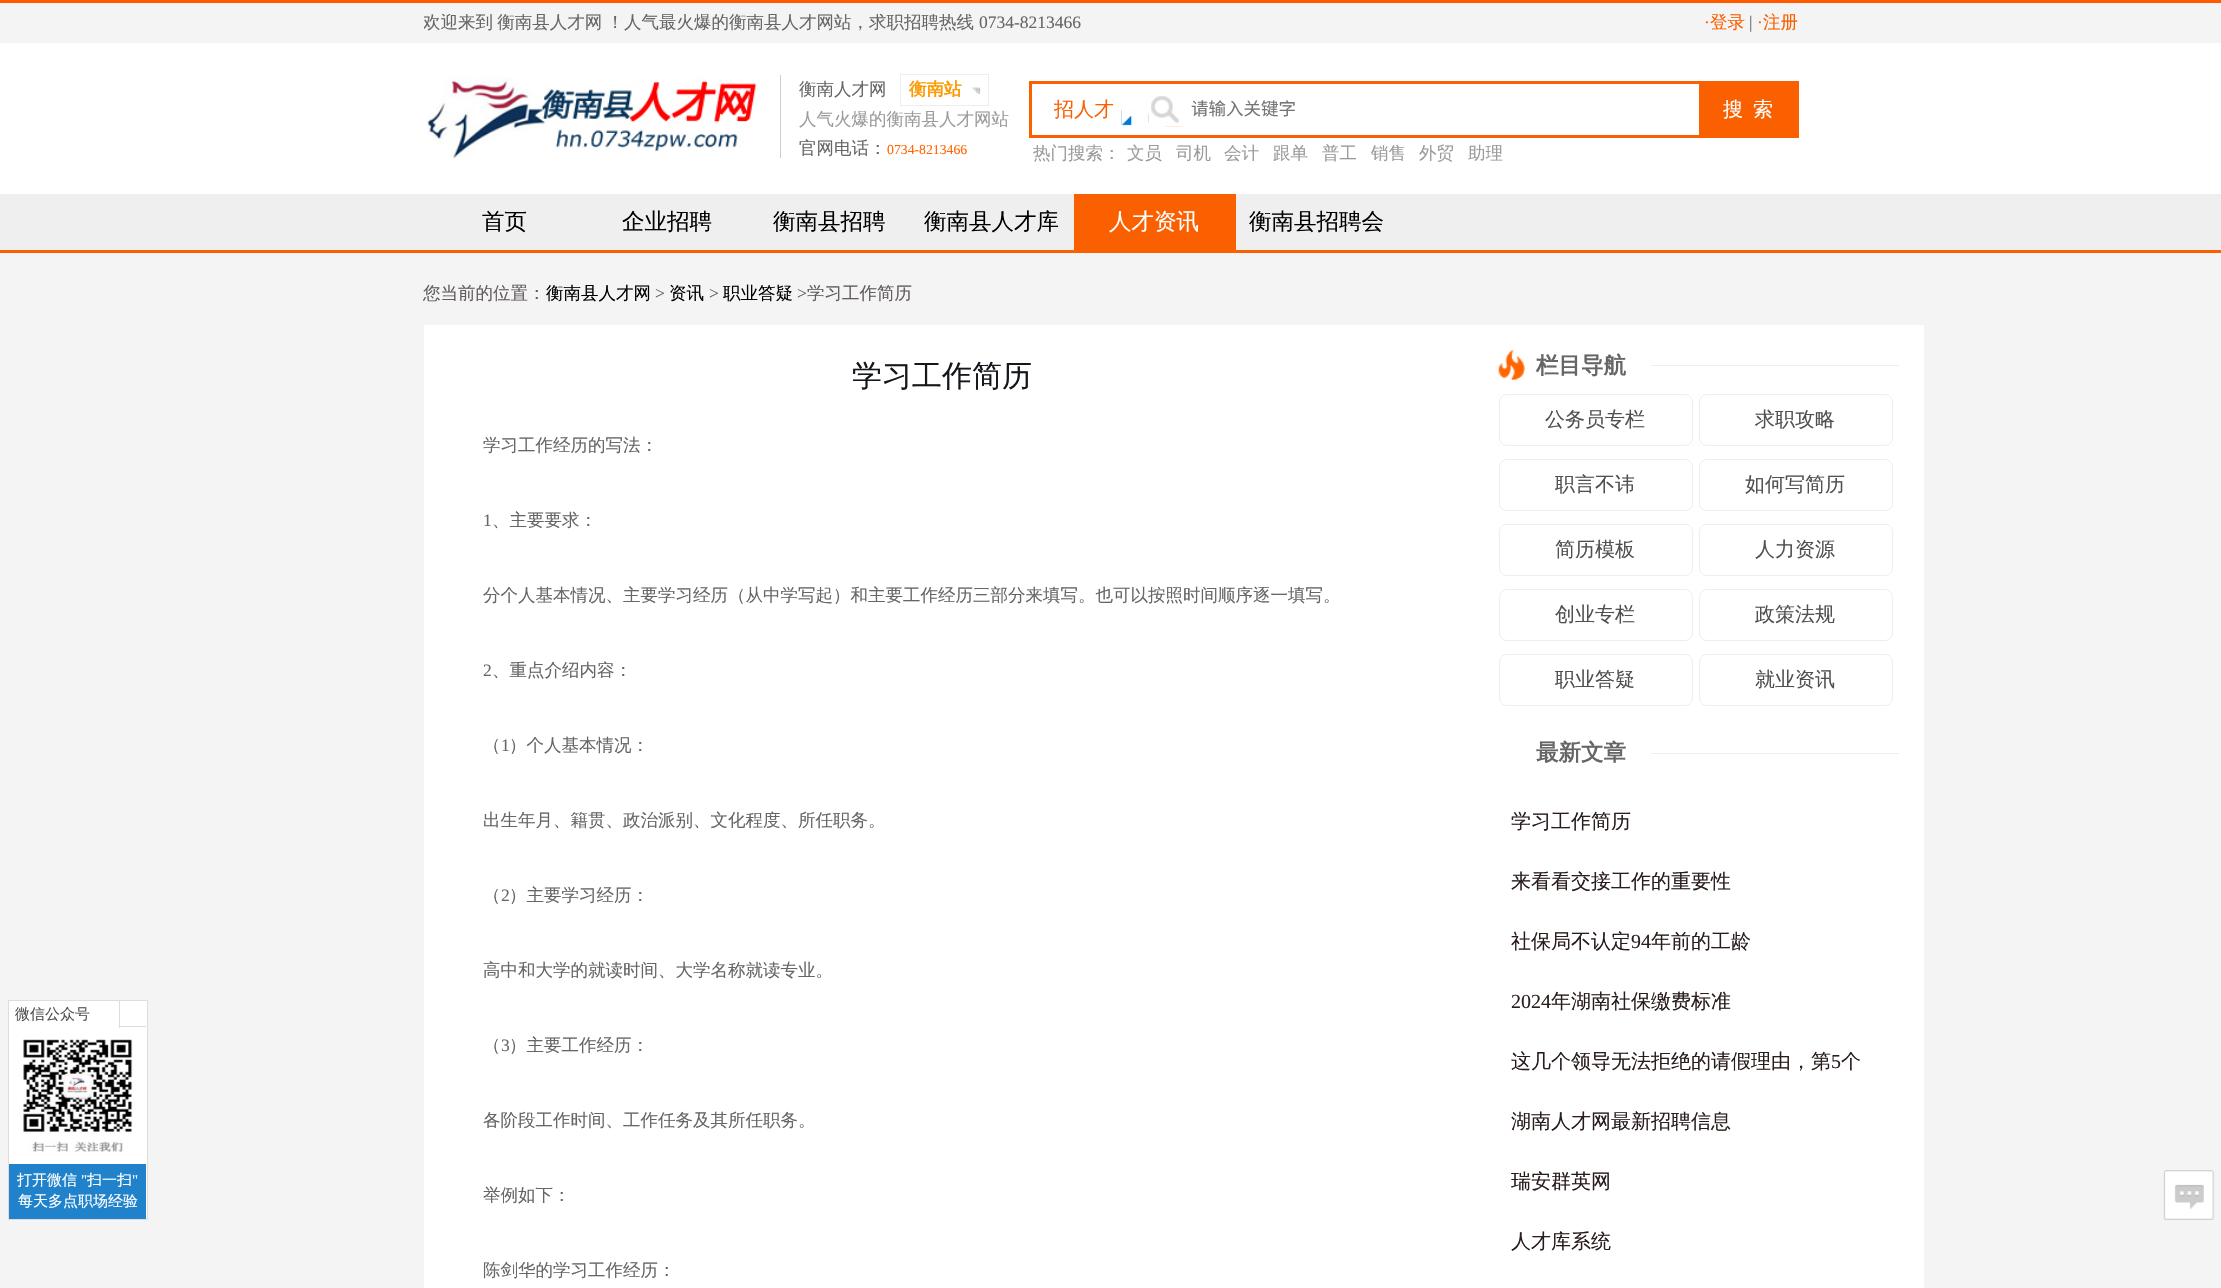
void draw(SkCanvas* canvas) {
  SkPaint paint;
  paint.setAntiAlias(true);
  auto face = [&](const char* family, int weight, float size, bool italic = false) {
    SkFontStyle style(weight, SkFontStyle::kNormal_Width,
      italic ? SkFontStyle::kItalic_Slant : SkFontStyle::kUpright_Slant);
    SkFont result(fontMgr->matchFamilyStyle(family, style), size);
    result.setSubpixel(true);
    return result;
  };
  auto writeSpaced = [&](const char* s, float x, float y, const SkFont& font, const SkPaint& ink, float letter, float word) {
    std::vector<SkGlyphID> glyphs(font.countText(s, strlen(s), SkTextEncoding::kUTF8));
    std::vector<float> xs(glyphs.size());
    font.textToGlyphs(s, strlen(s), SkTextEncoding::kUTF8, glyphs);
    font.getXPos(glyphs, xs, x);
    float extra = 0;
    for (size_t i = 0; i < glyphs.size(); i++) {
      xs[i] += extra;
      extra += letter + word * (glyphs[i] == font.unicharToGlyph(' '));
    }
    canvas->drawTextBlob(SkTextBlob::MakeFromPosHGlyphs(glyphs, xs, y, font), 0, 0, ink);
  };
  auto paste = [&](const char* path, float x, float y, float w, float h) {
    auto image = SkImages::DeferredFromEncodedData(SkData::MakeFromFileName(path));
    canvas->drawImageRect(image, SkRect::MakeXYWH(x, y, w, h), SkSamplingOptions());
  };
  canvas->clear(0xfff4f4f4);
  paint.setColor(0xffff5a00);
  canvas->drawRect(SkRect::MakeXYWH(0, 0, 2221, 3), paint);
  paint.setColor(0xffffffff);
  canvas->drawRect(SkRect::MakeXYWH(0, 43, 2221, 151), paint);
  paste("img/1.png", 427, 75, 330, 84);
  paint.setColor(0xffcdcdcd);
  canvas->drawRect(SkRect::MakeXYWH(780, 75, 1, 83), paint);
  paint.setStroke(true);
  paint.setStrokeWidth(1);
  paint.setColor(0xffeeeeee);
  canvas->drawRect(SkRect::MakeXYWH(900.5f, 74.5f, 88, 31), paint);
  paste("img/2.png", 972, 87, 9, 7);
  paint.setStroke(false);
  paint.setColor(0xfffa5f00);
  canvas->drawRect(SkRect::MakeXYWH(1029, 81, 770, 57), paint);
  paint.setColor(0xffffffff);
  canvas->drawRect(SkRect::MakeXYWH(1032, 84, 667, 51), paint);
  paste("img/3.png", 1121, 110, 13, 16);
  paste("img/4.png", 1148, 96, 36, 31);
  {
    const struct { float x, y, w, h; SkColor color; } items[] = {
      {0, 194, 2221, 56, 0xffefefef},
      {0, 250, 2221, 3, 0xfffa5f00},
      {1074, 194, 162, 56, 0xfffa5f00},
    };
    for (auto [x, y, w, h, color] : items) {
      paint.setColor(color);
      canvas->drawRect(SkRect::MakeXYWH(x, y, w, h), paint);
    }
  }
  paint.setColor(0xffffffff);
  canvas->drawRect(SkRect::MakeXYWH(8.5f, 1000.5f, 139, 219), paint);
  paint.setStroke(true);
  paint.setColor(0xffdddddd);
  canvas->drawRect(SkRect::MakeXYWH(8.5f, 1000.5f, 139, 219), paint);
  paint.setStroke(false);
  canvas->drawRect(SkRect::MakeXYWH(119, 1026, 27, 1), paint);
  canvas->drawRect(SkRect::MakeXYWH(119, 1001, 1, 27), paint);
  paste("img/5.png", 23, 1039, 110, 113);
  {
    const struct { float x, y, w, h; SkColor color; } items[] = {
      {9, 1164, 137, 55, 0xff2182cc},
      {424, 325, 1500, 963, 0xffffffff},
      {1651, 365, 248, 1, 0xffeeeeee},
    };
    for (auto [x, y, w, h, color] : items) {
      paint.setColor(color);
      canvas->drawRect(SkRect::MakeXYWH(x, y, w, h), paint);
    }
  }
  paste("img/6.png", 1498, 350, 27, 30);
  paint.setStroke(true);
  canvas->drawRoundRect(SkRect::MakeXYWH(1499.5f, 394.5f, 193, 51), 7.5f, 7.5f, paint);
  canvas->drawRoundRect(SkRect::MakeXYWH(1699.5f, 394.5f, 193, 51), 7.5f, 7.5f, paint);
  canvas->drawRoundRect(SkRect::MakeXYWH(1499.5f, 459.5f, 193, 51), 7.5f, 7.5f, paint);
  canvas->drawRoundRect(SkRect::MakeXYWH(1699.5f, 459.5f, 193, 51), 7.5f, 7.5f, paint);
  canvas->drawRoundRect(SkRect::MakeXYWH(1499.5f, 524.5f, 193, 51), 7.5f, 7.5f, paint);
  canvas->drawRoundRect(SkRect::MakeXYWH(1699.5f, 524.5f, 193, 51), 7.5f, 7.5f, paint);
  canvas->drawRoundRect(SkRect::MakeXYWH(1499.5f, 589.5f, 193, 51), 7.5f, 7.5f, paint);
  canvas->drawRoundRect(SkRect::MakeXYWH(1699.5f, 589.5f, 193, 51), 7.5f, 7.5f, paint);
  canvas->drawRoundRect(SkRect::MakeXYWH(1499.5f, 654.5f, 193, 51), 7.5f, 7.5f, paint);
  canvas->drawRoundRect(SkRect::MakeXYWH(1699.5f, 654.5f, 193, 51), 7.5f, 7.5f, paint);
  paint.setStroke(false);
  canvas->drawRect(SkRect::MakeXYWH(1651, 753, 248, 1), paint);
  paste("img/7.png", 2163, 1170, 51, 50);
  canvas->save();
  canvas->clipRect(SkRect::MakeXYWH(424, 14, 657, 17));
  auto f0 = face("WenQuanYi Zen Hei", 500, 17.5f);
  paint.setColor(0xff666666);
  writeSpaced("欢迎来到 衡南县人才网 ！人气最火爆的衡南县人才网站，求职招聘热线", 423, 28, f0, paint, 0, -1);
  canvas->restore();
  auto f1 = face("Liberation Serif", 400, 17.5f);
  canvas->drawString("0734-8213466", 979, 28, f1, paint);
  paint.setColor(0xfffa5f00);
  canvas->drawString("·", 1704, 28, f1, paint);
  canvas->drawString("登录", 1710, 28, f0, paint);
  paint.setColor(0xff666666);
  canvas->drawString("|", 1749, 28, f1, paint);
  paint.setColor(0xfffa5f00);
  canvas->drawString("·", 1757, 28, f1, paint);
  canvas->drawString("注册", 1763, 28, f0, paint);
  paint.setColor(0xff666666);
  canvas->drawString("衡南人才网", 799, 95, f0, paint);
  auto f2 = face("WenQuanYi Zen Hei", 700, 17.5f);
  paint.setColor(0xfffc9a01);
  canvas->drawString("衡南站", 909, 95, f2, paint);
  paint.setColor(0xff9b9b9b);
  canvas->drawString("人气火爆的衡南县人才网站", 799, 125, f0, paint);
  paint.setColor(0xff666666);
  canvas->drawString("官网电话：", 799, 154, f0, paint);
  auto f3 = face("Liberation Serif", 400, 13.75f);
  paint.setColor(0xffff6600);
  canvas->drawString("0734-8213466", 887, 154, f3, paint);
  auto f4 = face("WenQuanYi Zen Hei", 500, 20);
  paint.setColor(0xfffa5f00);
  canvas->drawString("招人才", 1054, 116, f4, paint);
  auto f5 = face("Noto Sans CJK SC", 400, 17.5f);
  paint.setColor(0xff757575);
  canvas->drawString("请输入关键字", 1191, 115, f5, paint);
  paint.setColor(0xffffffff);
  canvas->drawString("搜", 1723, 116, f4, paint);
  canvas->drawString("索", 1753, 116, f4, paint);
  paint.setColor(0xff9b9b9b);
  {
    const struct { const char* s; float x, y; } items[] = {
      {"热门搜索：", 1033, 159},
      {"文员", 1127, 159},
      {"司机", 1176, 159},
      {"会计", 1224, 159},
      {"跟单", 1273, 159},
      {"普工", 1322, 159},
      {"销售", 1371, 159},
      {"外贸", 1419, 159},
      {"助理", 1468, 159},
    };
    for (auto [s, x, y] : items) {
      canvas->drawString(s, x, y, f0, paint);
    }
  }
  auto f6 = face("WenQuanYi Zen Hei", 500, 22.5f);
  paint.setColor(0xff000000);
  {
    const struct { const char* s; float x, y; } items[] = {
      {"首页", 482, 229},
      {"企业招聘", 622, 229},
      {"衡南县招聘", 773, 229},
      {"衡南县人才库", 924, 229},
    };
    for (auto [s, x, y] : items) {
      canvas->drawString(s, x, y, f6, paint);
    }
  }
  paint.setColor(0xffffffff);
  canvas->drawString("人才资讯", 1109, 229, f6, paint);
  paint.setColor(0xff000000);
  canvas->drawString("衡南县招聘会", 1249, 229, f6, paint);
  auto f7 = face("WenQuanYi Zen Hei", 500, 15);
  paint.setColor(0xff505050);
  canvas->drawString("微信公众号", 15, 1019, f7, paint);
  paint.setColor(0xffffffff);
  canvas->drawString("打开微信", 17, 1185, f7, paint);
  auto f8 = face("Liberation Serif", 400, 15);
  canvas->drawString("\"", 81, 1185, f8, paint);
  canvas->drawString("扫一扫", 87, 1185, f7, paint);
  canvas->drawString("\"", 132, 1185, f8, paint);
  canvas->drawString("每天多点职场经验", 18, 1206, f7, paint);
  paint.setColor(0xff625c5c);
  canvas->drawString("您当前的位置：", 423, 299, f0, paint);
  paint.setColor(0xff000000);
  canvas->drawString("衡南县人才网", 546, 299, f0, paint);
  paint.setColor(0xff625c5c);
  canvas->drawString(">", 655, 299, f1, paint);
  paint.setColor(0xff000000);
  canvas->drawString("资讯", 669, 299, f0, paint);
  paint.setColor(0xff625c5c);
  canvas->drawString(">", 709, 299, f1, paint);
  paint.setColor(0xff000000);
  canvas->drawString("职业答疑", 723, 299, f0, paint);
  paint.setColor(0xff625c5c);
  canvas->drawString(">", 797, 299, f1, paint);
  canvas->drawString("学习工作简历", 807, 299, f0, paint);
  auto f9 = face("WenQuanYi Zen Hei", 500, 30);
  paint.setColor(0xff14171b);
  canvas->drawString("学习工作简历", 852, 386, f9, paint);
  paint.setColor(0xff666666);
  canvas->drawString("学习工作经历的写法：", 483, 451, f0, paint);
  canvas->drawString("1", 483, 526, f1, paint);
  canvas->drawString("、主要要求：", 492, 526, f0, paint);
  canvas->drawString("分个人基本情况、主要学习经历（从中学写起）和主要工作经历三部分来填写。也可以按照时间顺序逐一填写。", 483, 601, f0, paint);
  canvas->drawString("2", 483, 676, f1, paint);
  canvas->drawString("、重点介绍内容：", 492, 676, f0, paint);
  canvas->drawString("（", 483, 751, f0, paint);
  canvas->drawString("1", 501, 751, f1, paint);
  {
    const struct { const char* s; float x, y; } items[] = {
      {"）个人基本情况：", 509, 751},
      {"出生年月、籍贯、政治派别、文化程度、所任职务。", 483, 826},
      {"（", 483, 901},
    };
    for (auto [s, x, y] : items) {
      canvas->drawString(s, x, y, f0, paint);
    }
  }
  canvas->drawString("2", 501, 901, f1, paint);
  {
    const struct { const char* s; float x, y; } items[] = {
      {"）主要学习经历：", 509, 901},
      {"高中和大学的就读时间、大学名称就读专业。", 483, 976},
      {"（", 483, 1051},
    };
    for (auto [s, x, y] : items) {
      canvas->drawString(s, x, y, f0, paint);
    }
  }
  canvas->drawString("3", 501, 1051, f1, paint);
  {
    const struct { const char* s; float x, y; } items[] = {
      {"）主要工作经历：", 509, 1051},
      {"各阶段工作时间、工作任务及其所任职务。", 483, 1126},
      {"举例如下：", 483, 1201},
      {"陈剑华的学习工作经历：", 483, 1276},
    };
    for (auto [s, x, y] : items) {
      canvas->drawString(s, x, y, f0, paint);
    }
  }
  auto f10 = face("WenQuanYi Zen Hei", 700, 22.5f);
  canvas->drawString("栏目导航", 1536, 373, f10, paint);
  paint.setColor(0xff505050);
  {
    const struct { const char* s; float x, y; } items[] = {
      {"公务员专栏", 1545, 426},
      {"求职攻略", 1755, 426},
      {"职言不讳", 1555, 491},
      {"如何写简历", 1745, 491},
      {"简历模板", 1555, 556},
      {"人力资源", 1755, 556},
      {"创业专栏", 1555, 621},
      {"政策法规", 1755, 621},
      {"职业答疑", 1555, 686},
      {"就业资讯", 1755, 686},
    };
    for (auto [s, x, y] : items) {
      canvas->drawString(s, x, y, f4, paint);
    }
  }
  paint.setColor(0xff666666);
  canvas->drawString("最新文章", 1536, 760, f10, paint);
  paint.setColor(0xff291c1c);
  {
    const struct { const char* s; float x, y; } items[] = {
      {"学习工作简历", 1511, 828},
      {"来看看交接工作的重要性", 1511, 888},
      {"社保局不认定", 1511, 948},
    };
    for (auto [s, x, y] : items) {
      canvas->drawString(s, x, y, f4, paint);
    }
  }
  auto f11 = face("Liberation Serif", 400, 20);
  canvas->drawString("94", 1631, 948, f11, paint);
  canvas->drawString("年前的工龄", 1651, 948, f4, paint);
  canvas->drawString("2024", 1511, 1008, f11, paint);
  canvas->drawString("年湖南社保缴费标准", 1551, 1008, f4, paint);
  canvas->drawString("这几个领导无法拒绝的请假理由，第", 1511, 1068, f4, paint);
  canvas->drawString("5", 1831, 1068, f11, paint);
  {
    const struct { const char* s; float x, y; } items[] = {
      {"个", 1841, 1068},
      {"湖南人才网最新招聘信息", 1511, 1128},
      {"瑞安群英网", 1511, 1188},
      {"人才库系统", 1511, 1248},
    };
    for (auto [s, x, y] : items) {
      canvas->drawString(s, x, y, f4, paint);
    }
  }
}
